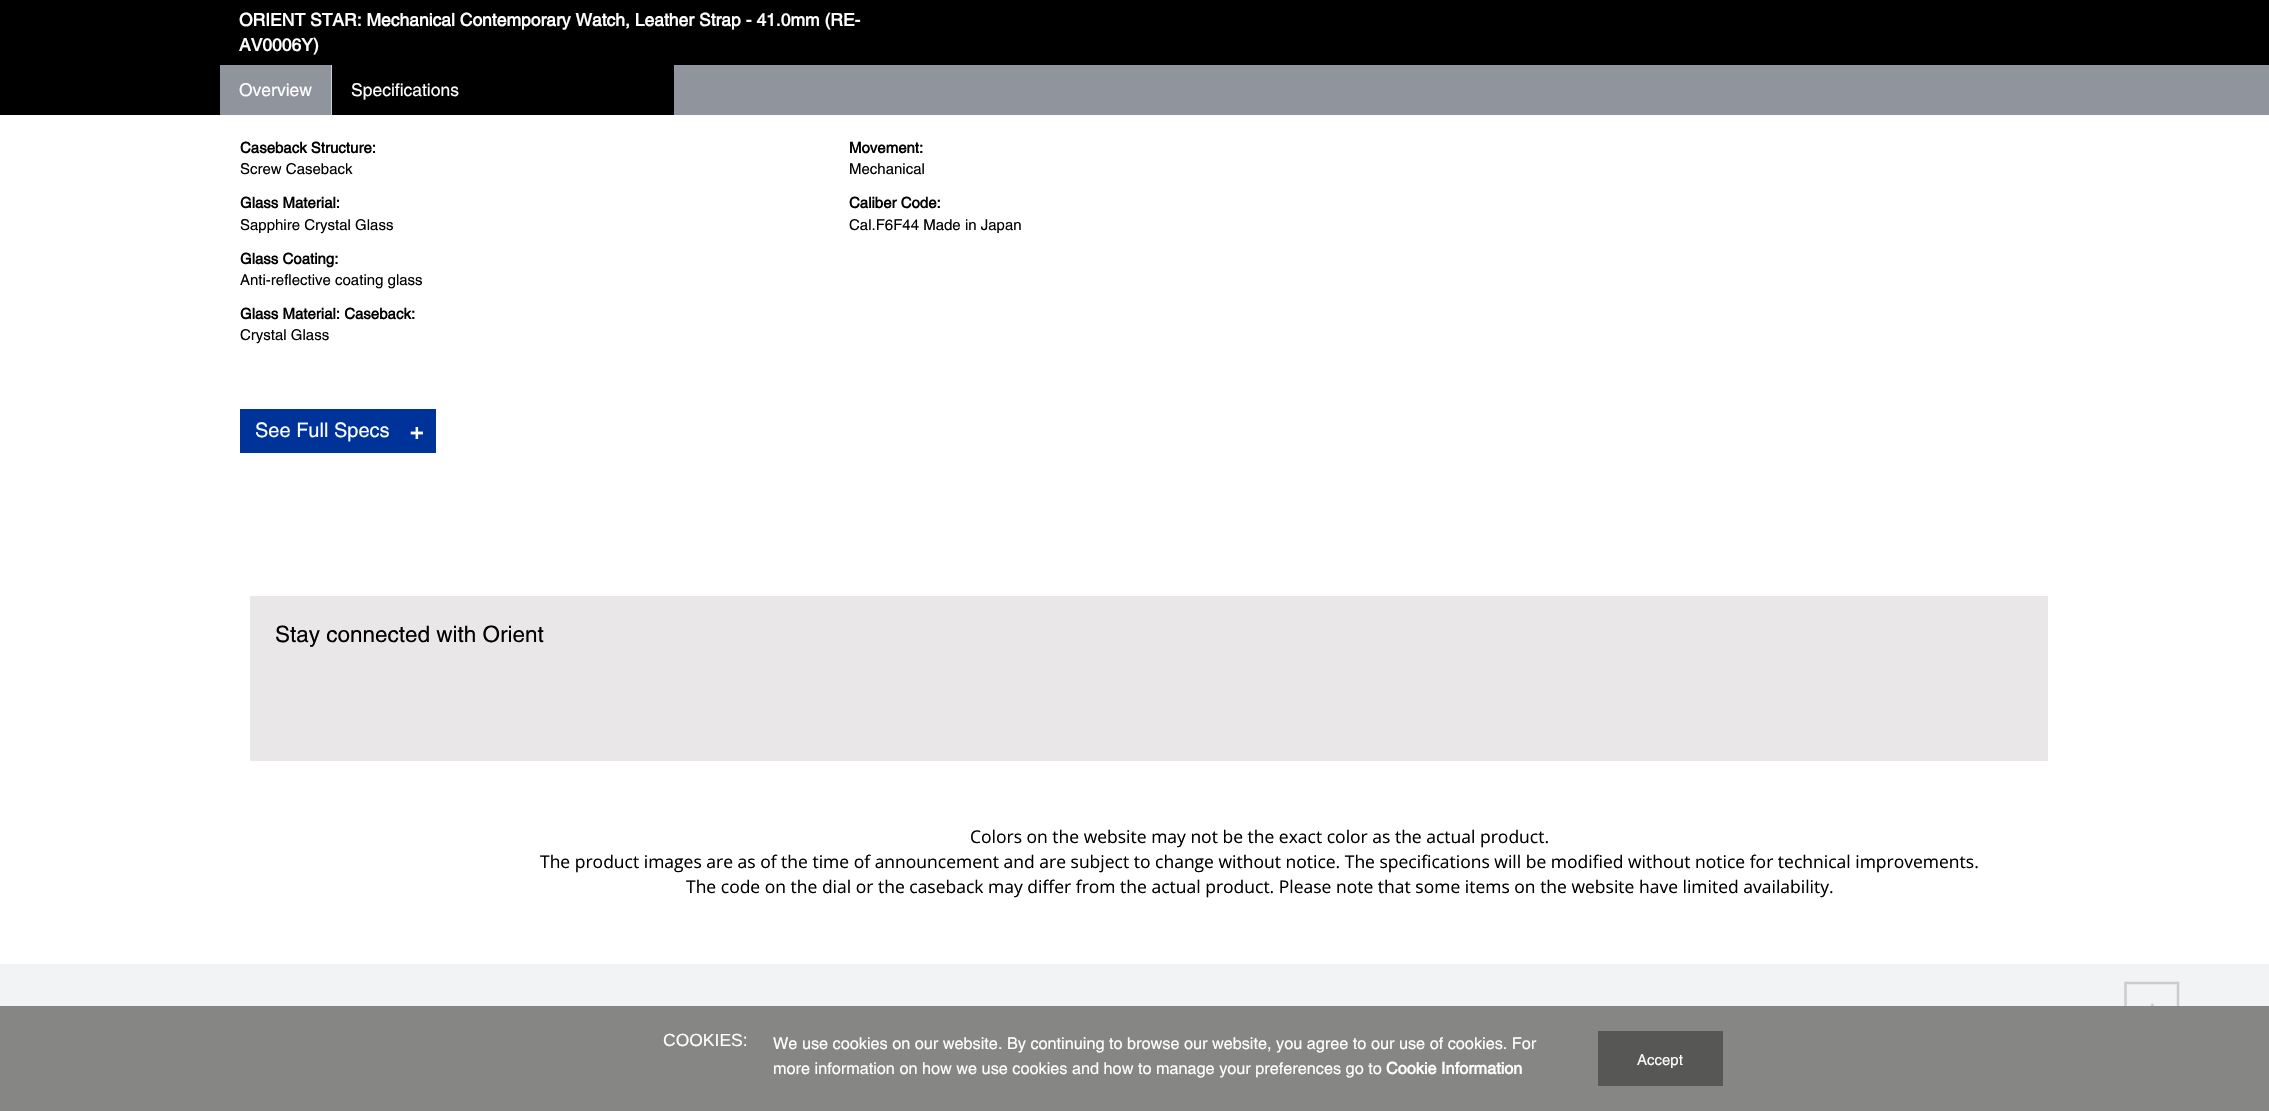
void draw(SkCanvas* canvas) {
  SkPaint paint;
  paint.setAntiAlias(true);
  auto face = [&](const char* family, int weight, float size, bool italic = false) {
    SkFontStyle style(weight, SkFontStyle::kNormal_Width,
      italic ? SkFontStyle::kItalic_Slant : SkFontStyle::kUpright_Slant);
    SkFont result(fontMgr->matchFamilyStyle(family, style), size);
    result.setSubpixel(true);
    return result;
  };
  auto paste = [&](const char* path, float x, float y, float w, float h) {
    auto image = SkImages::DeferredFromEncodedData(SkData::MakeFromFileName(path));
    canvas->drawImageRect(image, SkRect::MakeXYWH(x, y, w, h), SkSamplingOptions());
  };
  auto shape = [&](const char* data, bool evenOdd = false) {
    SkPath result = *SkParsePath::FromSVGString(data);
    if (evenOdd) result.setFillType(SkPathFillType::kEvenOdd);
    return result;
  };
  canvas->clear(0xffffffff);
  {
    const struct { float x, y, w, h; SkColor color; } items[] = {
      {674, 65, 1595, 50, 0xff90949c},
      {0, 0, 2269, 65, 0xff000000},
      {0, 65, 674, 50, 0xff000000},
      {220, 65, 111, 50, 0xff90949c},
      {331, 65, 1, 50, 0xffcbd0db},
      {240, 409, 196, 44, 0xff003399},
      {0, 964, 2269, 42, 0xfff1f3f5},
    };
    for (auto [x, y, w, h, color] : items) {
      paint.setColor(color);
      canvas->drawRect(SkRect::MakeXYWH(x, y, w, h), paint);
    }
  }
  paint.setStroke(true);
  paint.setStrokeWidth(2.5f);
  paint.setColor(0xffcccccc);
  canvas->drawPath(shape("M2125.5 1035.5V983H2178V1035.5Z"), paint);
  paste("img/1.png", 2150, 1003, 5, 3);
  paint.setStroke(false);
  {
    const struct { float x, y, w, h; SkColor color; } items[] = {
      {250, 596, 1798, 165, 0xffe9e7e8},
      {0, 1006, 2269, 105, 0xff868685},
      {1598, 1031, 125, 55, 0xff575755},
    };
    for (auto [x, y, w, h, color] : items) {
      paint.setColor(color);
      canvas->drawRect(SkRect::MakeXYWH(x, y, w, h), paint);
    }
  }
  auto f0 = face("Helvetica", 700, 17.5f);
  paint.setColor(0xffffffff);
  canvas->drawString("ORIENT STAR: Mechanical Contemporary Watch, Leather Strap - 41.0mm (RE-", 239, 26, f0, paint);
  canvas->drawString("AV0006Y)", 239, 51, f0, paint);
  auto f1 = face("Helvetica", 400, 17.5f);
  canvas->drawString("Overview", 239, 96, f1, paint);
  canvas->drawString("Specifications", 351, 96, f1, paint);
  auto f2 = face("Helvetica", 700, 15);
  paint.setColor(0xff000000);
  canvas->drawString("Caseback Structure:", 240, 153, f2, paint);
  auto f3 = face("Helvetica", 400, 15);
  canvas->drawString("Screw Caseback", 240, 174, f3, paint);
  canvas->drawString("Glass Material:", 240, 208, f2, paint);
  canvas->drawString("Sapphire Crystal Glass", 240, 230, f3, paint);
  canvas->drawString("Glass Coating:", 240, 264, f2, paint);
  canvas->drawString("Anti-reflective coating glass", 240, 285, f3, paint);
  canvas->drawString("Glass Material: Caseback:", 240, 319, f2, paint);
  canvas->drawString("Crystal Glass", 240, 340, f3, paint);
  canvas->drawString("Movement:", 849, 153, f2, paint);
  canvas->drawString("Mechanical", 849, 174, f3, paint);
  canvas->drawString("Caliber Code:", 849, 208, f2, paint);
  canvas->drawString("Cal.F6F44 Made in Japan", 849, 230, f3, paint);
  auto f4 = face("Helvetica", 400, 20);
  paint.setColor(0xffffffff);
  canvas->drawString("See Full Specs", 255, 437, f4, paint);
  auto f5 = face("Helvetica", 700, 22.5f);
  canvas->drawString("+", 410, 439, f5, paint);
  auto f6 = face("Helvetica", 400, 22.5f);
  paint.setColor(0xff000000);
  canvas->drawString("Stay connected with Orient", 275, 642, f6, paint);
  auto f7 = face("Open Sans", 400, 17.5f);
  {
    const struct { const char* s; float x, y; } items[] = {
      {"Colors on the website may not be the exact color as the actual product.", 970, 843},
      {"The product images are as of the time of announcement and are subject to change without notice. The specifications will be modified without notice for technical improvements.", 540, 868},
      {"The code on the dial or the caseback may differ from the actual product. Please note that some items on the website have limited availability.", 686, 893},
    };
    for (auto [s, x, y] : items) {
      canvas->drawString(s, x, y, f7, paint);
    }
  }
  auto f8 = face("Liberation Sans", 400, 17.5f);
  paint.setColor(0xffffffff);
  canvas->drawString("COOKIES:", 663, 1046, f8, paint);
  auto f9 = face("Helvetica", 400, 16.25f);
  canvas->drawString("We use cookies on our website. By continuing to browse our website, you agree to our use of cookies. For", 773, 1049, f9, paint);
  canvas->drawString("more information on how we use cookies and how to manage your preferences go to", 773, 1074, f9, paint);
  auto f10 = face("Helvetica", 700, 16.25f);
  canvas->drawString("Cookie Information", 1386, 1074, f10, paint);
  canvas->drawString("Accept", 1637, 1065, f3, paint);
}
